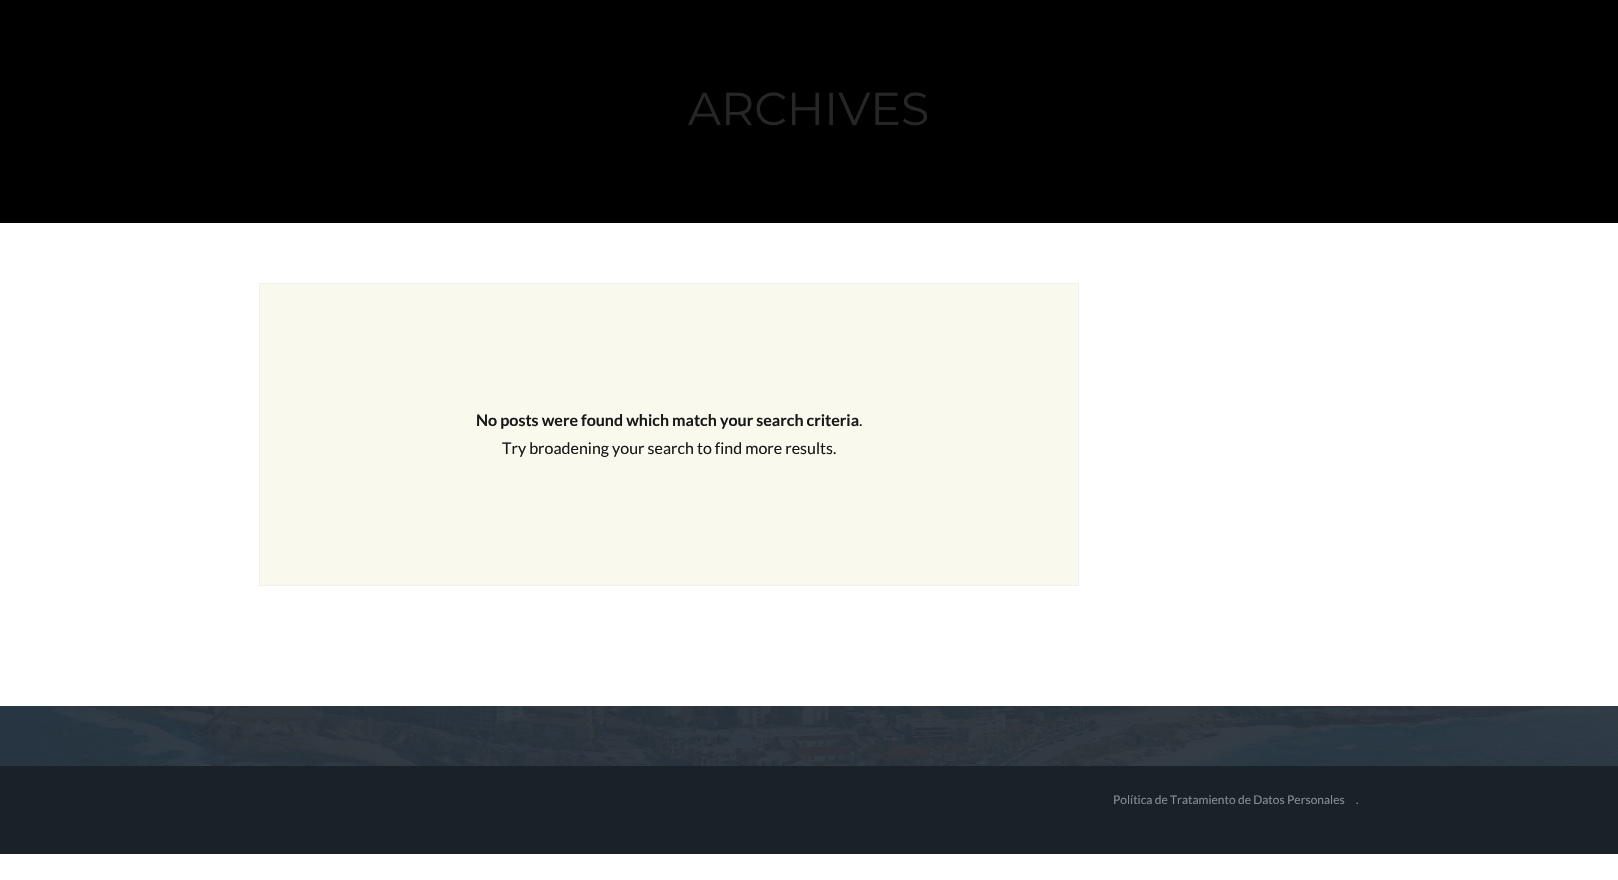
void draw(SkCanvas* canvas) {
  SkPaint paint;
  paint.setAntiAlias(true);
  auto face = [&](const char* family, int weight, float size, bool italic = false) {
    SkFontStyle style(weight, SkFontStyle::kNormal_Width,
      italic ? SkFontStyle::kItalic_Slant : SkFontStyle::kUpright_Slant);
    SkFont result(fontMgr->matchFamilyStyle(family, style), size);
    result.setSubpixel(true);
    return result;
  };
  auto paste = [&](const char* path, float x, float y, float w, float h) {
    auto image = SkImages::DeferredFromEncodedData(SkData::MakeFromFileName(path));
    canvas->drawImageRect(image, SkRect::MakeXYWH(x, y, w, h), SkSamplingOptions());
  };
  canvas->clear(0xffffffff);
  paint.setColor(0xff000000);
  canvas->drawRect(SkRect::MakeXYWH(0, 0, 1618, 223), paint);
  paint.setColor(0xfff9f9ed);
  canvas->drawRect(SkRect::MakeXYWH(259.5f, 283.5f, 819, 302), paint);
  paint.setStroke(true);
  paint.setStrokeWidth(1);
  paint.setColor(0xffefefef);
  canvas->drawRect(SkRect::MakeXYWH(259.5f, 283.5f, 819, 302), paint);
  paste("img/1.png", 0, 706, 1618, 60);
  paint.setStroke(false);
  paint.setColor(0xff1a2229);
  canvas->drawRect(SkRect::MakeXYWH(0, 766, 1618, 88), paint);
  auto f0 = face("Montserrat", 400, 46);
  paint.setColor(0xff262624);
  canvas->drawString("ARCHIVES", 688, 125, f0, paint);
  auto f1 = face("Lato", 700, 16);
  paint.setColor(0xff191919);
  canvas->drawString("No posts were found which match your search criteria", 476, 426, f1, paint);
  auto f2 = face("Lato", 400, 16);
  canvas->drawString(".", 859, 426, f2, paint);
  canvas->drawString("Try broadening your search to find more results.", 502, 454, f2, paint);
  auto f3 = face("Lato", 400, 12);
  paint.setColor(0xff878c92);
  canvas->drawString("Política de Tratamiento de Datos Personales", 1113, 804, f3, paint);
  canvas->drawString(".", 1356, 804, f3, paint);
}
